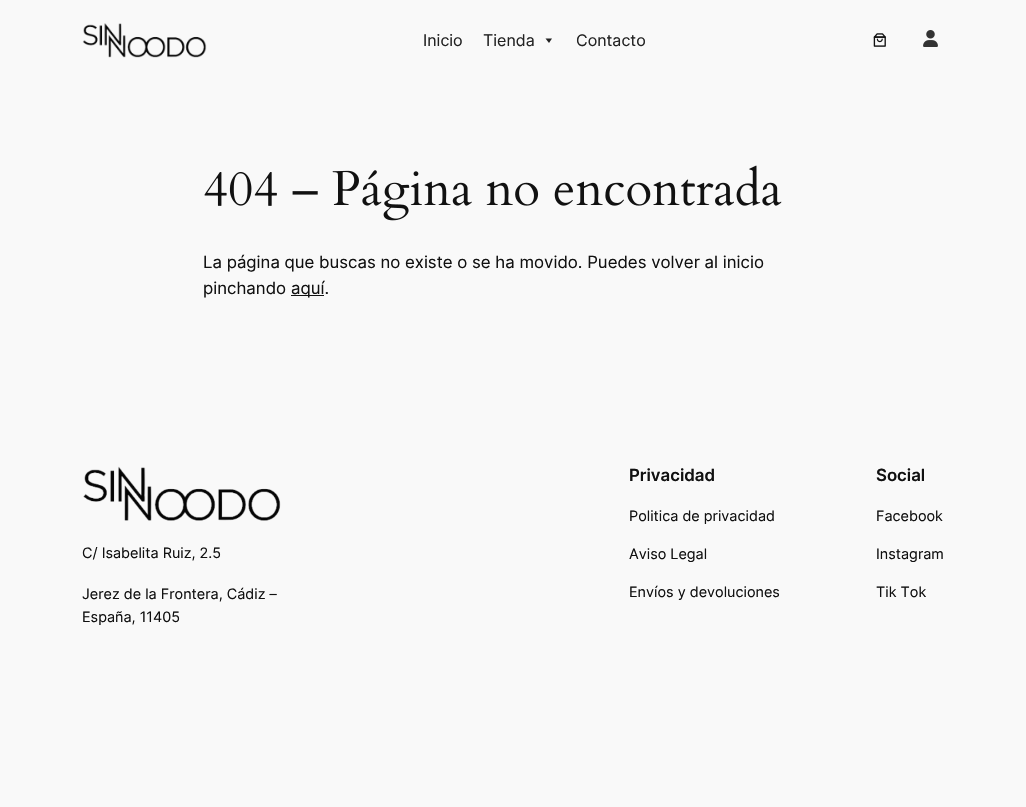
void draw(SkCanvas* canvas) {
  SkPaint paint;
  paint.setAntiAlias(true);
  auto face = [&](const char* family, int weight, float size, bool italic = false) {
    SkFontStyle style(weight, SkFontStyle::kNormal_Width,
      italic ? SkFontStyle::kItalic_Slant : SkFontStyle::kUpright_Slant);
    SkFont result(fontMgr->matchFamilyStyle(family, style), size);
    result.setSubpixel(true);
    return result;
  };
  auto paste = [&](const char* path, float x, float y, float w, float h) {
    auto image = SkImages::DeferredFromEncodedData(SkData::MakeFromFileName(path));
    canvas->drawImageRect(image, SkRect::MakeXYWH(x, y, w, h), SkSamplingOptions());
  };
  auto shape = [&](const char* data, bool evenOdd = false) {
    SkPath result = *SkParsePath::FromSVGString(data);
    if (evenOdd) result.setFillType(SkPathFillType::kEvenOdd);
    return result;
  };
  canvas->clear(0xfff9f9f9);
  paste("img/1.png", 82, 23, 125, 35);
  paint.setColor(0xff222222);
  canvas->drawPath(shape("M552 38.5L549 43L545.5 38.5Z"), paint);
  paste("img/2.png", 873, 33, 13, 14);
  paste("img/3.png", 923, 30, 15, 17);
  paste("img/4.png", 204, 165, 578, 56);
  paint.setColor(0xff111111);
  canvas->drawRect(SkRect::MakeXYWH(291, 295, 33, 1), paint);
  paste("img/5.png", 83, 466, 198, 55);
  auto f0 = face("Inter", 400, 16);
  paint.setColor(0xff222222);
  {
    const struct { const char* s; float x, y; } items[] = {
      {"Inicio", 423, 46},
      {"Tienda", 483, 46},
      {"Contacto", 576, 46},
    };
    for (auto [s, x, y] : items) {
      canvas->drawString(s, x, y, f0, paint);
    }
  }
  auto f1 = face("Inter", 400, 16.8f);
  paint.setColor(0xff111111);
  {
    const struct { const char* s; float x, y; } items[] = {
      {"La página que buscas no existe o se ha movido. Puedes volver al inicio", 203, 268},
      {"pinchando", 203, 294},
      {"aquí.", 291, 294},
    };
    for (auto [s, x, y] : items) {
      canvas->drawString(s, x, y, f1, paint);
    }
  }
  auto f2 = face("Inter", 400, 14.4f);
  {
    const struct { const char* s; float x, y; } items[] = {
      {"C/ Isabelita Ruiz, 2.5", 82, 558},
      {"Jerez de la Frontera, Cádiz –", 82, 599},
      {"España, 11405", 82, 622},
    };
    for (auto [s, x, y] : items) {
      canvas->drawString(s, x, y, f2, paint);
    }
  }
  auto f3 = face("Inter", 600, 16.8f);
  canvas->drawString("Privacidad", 629, 481, f3, paint);
  {
    const struct { const char* s; float x, y; } items[] = {
      {"Politica de privacidad", 629, 521},
      {"Aviso Legal", 629, 559},
      {"Envíos y devoluciones", 629, 597},
    };
    for (auto [s, x, y] : items) {
      canvas->drawString(s, x, y, f2, paint);
    }
  }
  canvas->drawString("Social", 876, 481, f3, paint);
  {
    const struct { const char* s; float x, y; } items[] = {
      {"Facebook", 876, 521},
      {"Instagram", 876, 559},
      {"Tik Tok", 876, 597},
    };
    for (auto [s, x, y] : items) {
      canvas->drawString(s, x, y, f2, paint);
    }
  }
}
